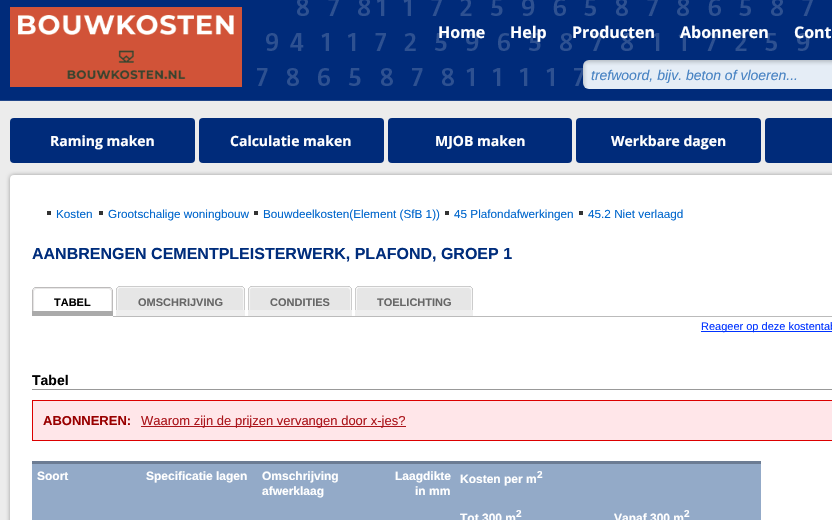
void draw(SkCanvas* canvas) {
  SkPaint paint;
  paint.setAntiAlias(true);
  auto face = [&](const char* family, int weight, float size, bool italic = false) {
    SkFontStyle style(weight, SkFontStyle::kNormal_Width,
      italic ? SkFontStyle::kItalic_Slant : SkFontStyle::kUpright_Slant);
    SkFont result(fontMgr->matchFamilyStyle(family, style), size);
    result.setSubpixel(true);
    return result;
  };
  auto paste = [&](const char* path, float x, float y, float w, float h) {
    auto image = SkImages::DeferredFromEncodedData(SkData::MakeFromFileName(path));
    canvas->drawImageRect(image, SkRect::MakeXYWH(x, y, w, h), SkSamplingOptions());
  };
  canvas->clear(0xffececec);
  paste("img/1.png", 0, 0, 832, 101);
  paste("img/2.png", 10, 7, 232, 80);
  paste("img/3.png", 583, 60, 249, 29);
  paint.setColor(0xff002b7a);
  canvas->drawRoundRect(SkRect::MakeXYWH(10, 118, 185, 45), 4, 4, paint);
  canvas->drawRoundRect(SkRect::MakeXYWH(199, 118, 185, 45), 4, 4, paint);
  canvas->drawRoundRect(SkRect::MakeXYWH(388, 118, 184, 45), 4, 4, paint);
  canvas->drawRoundRect(SkRect::MakeXYWH(576, 118, 185, 45), 4, 4, paint);
  canvas->drawRoundRect(SkRect::MakeXYWH(765, 118, 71, 45), 4, 4, paint);
  paint.setColor(0xff999999);
  paint.setMaskFilter(SkMaskFilter::MakeBlur(kNormal_SkBlurStyle, 2));
  canvas->drawRoundRect(SkRect::MakeXYWH(10, 175, 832, 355), 4, 4, paint);
  paint.setMaskFilter(nullptr);
  paint.setColor(0xffffffff);
  canvas->drawRoundRect(SkRect::MakeXYWH(10, 175, 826, 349), 4, 4, paint);
  {
    const struct { float x, y, w, h; SkColor color; } items[] = {
      {47, 211, 4, 4, 0xff333333},
      {99, 211, 4, 4, 0xff333333},
      {254, 211, 4, 4, 0xff333333},
      {445, 211, 4, 4, 0xff333333},
      {579, 211, 4, 4, 0xff333333},
      {113, 316, 719, 1, 0xffbbbbbb},
      {32, 311, 81, 5, 0xffaaaaaa},
    };
    for (auto [x, y, w, h, color] : items) {
      paint.setColor(color);
      canvas->drawRect(SkRect::MakeXYWH(x, y, w, h), paint);
    }
  }
  paste("img/4.png", 32, 287, 77, 24);
  paste("img/5.png", 109, 287, 4, 24);
  paint.setColor(0xffeeeeee);
  canvas->drawRect(SkRect::MakeXYWH(116, 310, 129, 6), paint);
  paste("img/6.png", 116, 286, 125, 24);
  paste("img/7.png", 241, 286, 4, 24);
  canvas->drawRect(SkRect::MakeXYWH(248, 310, 104, 6), paint);
  paste("img/8.png", 248, 286, 100, 24);
  paste("img/7.png", 348, 286, 4, 24);
  canvas->drawRect(SkRect::MakeXYWH(355, 310, 118, 6), paint);
  paste("img/9.png", 355, 286, 114, 24);
  paste("img/7.png", 469, 286, 4, 24);
  paint.setColor(0xff0033ff);
  canvas->drawRect(SkRect::MakeXYWH(701, 331, 131, 1), paint);
  paint.setColor(0xff999999);
  canvas->drawRect(SkRect::MakeXYWH(32, 389, 800, 1), paint);
  paint.setColor(0xffffe6e9);
  canvas->drawRect(SkRect::MakeXYWH(32.5f, 400.5f, 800, 40), paint);
  paint.setStroke(true);
  paint.setStrokeWidth(1);
  paint.setColor(0xffdc0000);
  canvas->drawRect(SkRect::MakeXYWH(32.5f, 400.5f, 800, 40), paint);
  paint.setStroke(false);
  {
    const struct { float x, y, w, h; SkColor color; } items[] = {
      {141, 426, 265, 1, 0xffab161c},
      {32, 461, 729, 3, 0xff6c7c93},
      {32, 464, 729, 40, 0xff93aac8},
      {32, 504, 729, 16, 0xff93aac8},
    };
    for (auto [x, y, w, h, color] : items) {
      paint.setColor(color);
      canvas->drawRect(SkRect::MakeXYWH(x, y, w, h), paint);
    }
  }
  auto f0 = face("Open Sans", 700, 16);
  paint.setColor(0xffffffff);
  {
    const struct { const char* s; float x, y; } items[] = {
      {"Home", 438, 38},
      {"Help", 510, 38},
      {"Producten", 572, 38},
      {"Abonneren", 680, 38},
      {"Cont", 794, 38},
    };
    for (auto [s, x, y] : items) {
      canvas->drawString(s, x, y, f0, paint);
    }
  }
  auto f1 = face("Liberation Sans", 400, 14, true);
  paint.setColor(0xff4883c3);
  canvas->drawString("trefwoord, bijv. beton of vloeren...", 591, 80, f1, paint);
  auto f2 = face("Open Sans", 700, 14);
  paint.setColor(0xffffffff);
  {
    const struct { const char* s; float x, y; } items[] = {
      {"Raming maken", 50, 146},
      {"Calculatie maken", 230, 146},
      {"MJOB maken", 435, 146},
      {"Werkbare dagen", 611, 146},
    };
    for (auto [s, x, y] : items) {
      canvas->drawString(s, x, y, f2, paint);
    }
  }
  auto f3 = face("Liberation Sans", 400, 11.75f);
  paint.setColor(0xff0066cc);
  {
    const struct { const char* s; float x, y; } items[] = {
      {"Kosten", 56, 218},
      {"Grootschalige woningbouw", 108, 218},
      {"Bouwdeelkosten(Element (SfB 1))", 263, 218},
      {"45 Plafondafwerkingen", 454, 218},
      {"45.2 Niet verlaagd", 588, 218},
    };
    for (auto [s, x, y] : items) {
      canvas->drawString(s, x, y, f3, paint);
    }
  }
  auto f4 = face("Liberation Sans", 700, 16);
  paint.setColor(0xff002d7c);
  canvas->drawString("AANBRENGEN CEMENTPLEISTERWERK, PLAFOND, GROEP 1", 32, 259, f4, paint);
  auto f5 = face("Liberation Sans", 700, 11);
  paint.setColor(0xff000000);
  canvas->drawString("TABEL", 54, 306, f5, paint);
  paint.setColor(0xff666666);
  {
    const struct { const char* s; float x, y; } items[] = {
      {"OMSCHRIJVING", 138, 306},
      {"CONDITIES", 270, 306},
      {"TOELICHTING", 377, 306},
    };
    for (auto [s, x, y] : items) {
      canvas->drawString(s, x, y, f5, paint);
    }
  }
  auto f6 = face("Liberation Sans", 400, 11);
  paint.setColor(0xff0033ff);
  canvas->drawString("Reageer op deze kostentab", 701, 330, f6, paint);
  auto f7 = face("Liberation Sans", 700, 14);
  paint.setColor(0xff000000);
  canvas->drawString("Tabel", 32, 385, f7, paint);
  auto f8 = face("Liberation Sans", 700, 13);
  paint.setColor(0xff990000);
  canvas->drawString("ABONNEREN:", 43, 425, f8, paint);
  auto f9 = face("Liberation Sans", 400, 13);
  paint.setColor(0xffab161c);
  canvas->drawString("Waarom zijn de prijzen vervangen door x-jes?", 141, 425, f9, paint);
  auto f10 = face("Liberation Sans", 700, 12);
  paint.setColor(0xffffffff);
  {
    const struct { const char* s; float x, y; } items[] = {
      {"Soort", 37, 480},
      {"Specificatie lagen", 146, 480},
      {"Omschrijving", 262, 480},
      {"afwerklaag", 262, 495},
      {"Laagdikte", 395, 480},
      {"in mm", 415, 495},
      {"Kosten per m", 460, 483},
    };
    for (auto [s, x, y] : items) {
      canvas->drawString(s, x, y, f10, paint);
    }
  }
  auto f11 = face("Liberation Sans", 700, 10);
  canvas->drawString("2", 537, 478, f11, paint);
  canvas->drawString("Tot 300 m", 460, 522, f10, paint);
  canvas->drawString("2", 516, 517, f11, paint);
  canvas->drawString("Vanaf 300 m", 614, 522, f10, paint);
  canvas->drawString("2", 684, 517, f11, paint);
}
